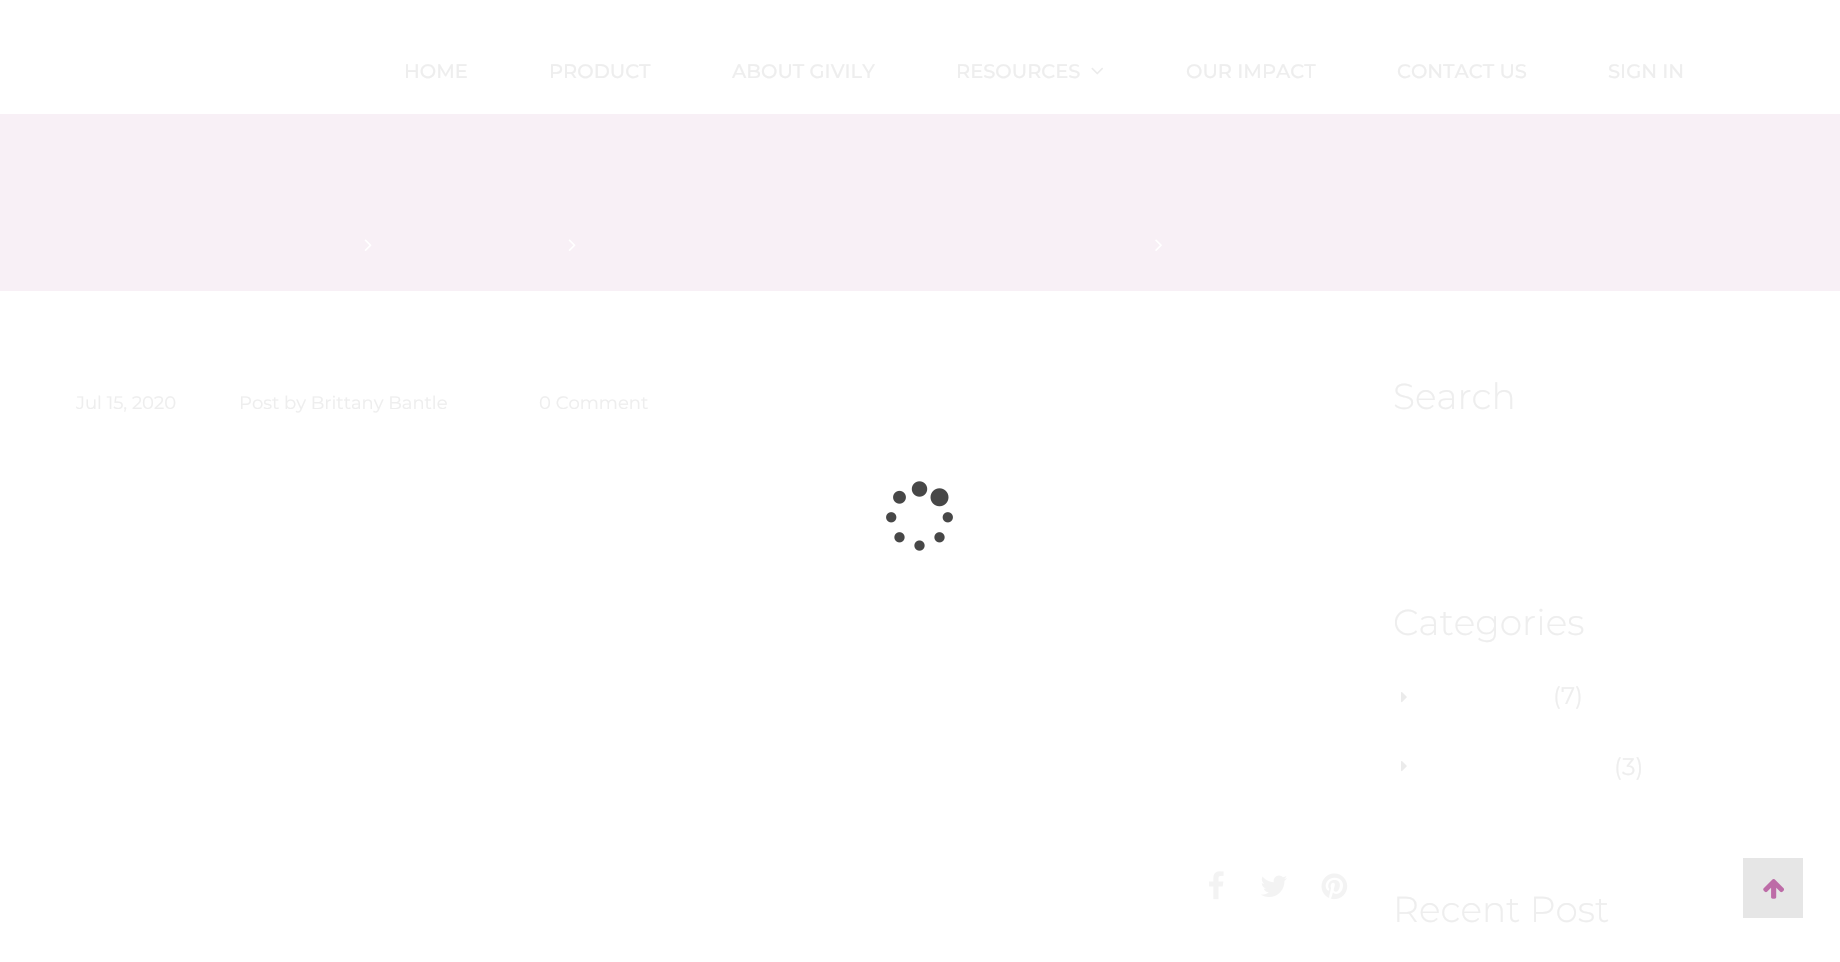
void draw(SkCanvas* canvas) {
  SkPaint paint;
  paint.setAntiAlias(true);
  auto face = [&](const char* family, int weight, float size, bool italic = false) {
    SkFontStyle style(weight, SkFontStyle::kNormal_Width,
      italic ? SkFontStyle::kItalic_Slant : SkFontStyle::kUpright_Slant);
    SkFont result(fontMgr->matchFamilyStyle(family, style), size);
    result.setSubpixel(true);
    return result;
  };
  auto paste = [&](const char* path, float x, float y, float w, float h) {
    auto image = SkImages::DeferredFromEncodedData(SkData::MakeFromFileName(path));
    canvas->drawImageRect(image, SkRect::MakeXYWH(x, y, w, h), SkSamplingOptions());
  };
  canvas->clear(0xffffffff);
  paste("img/1.png", 1091, 67, 13, 8);
  paint.setColor(0xfff8f0f6);
  canvas->drawRect(SkRect::MakeXYWH(0, 114, 1840, 177), paint);
  paste("img/2.png", 364, 239, 8, 12);
  paste("img/2.png", 568, 239, 8, 12);
  paste("img/3.png", 1155, 239, 7, 12);
  paste("img/4.png", 1209, 871, 15, 29);
  paste("img/5.png", 1261, 875, 26, 22);
  paste("img/6.png", 1321, 873, 27, 27);
  paste("img/7.png", 1401, 692, 6, 11);
  paste("img/7.png", 1401, 761, 6, 11);
  paint.setColor(0xffe6e6e6);
  canvas->drawRect(SkRect::MakeXYWH(1743, 858, 60, 60), paint);
  paste("img/8.png", 1763, 879, 21, 20);
  paste("img/9.png", 886, 481, 67, 70);
  auto f0 = face("Montserrat", 500, 19.5f);
  paint.setColor(0xffeeeeee);
  {
    const struct { const char* s; float x, y; } items[] = {
      {"HOME", 404, 78},
      {"PRODUCT", 549, 78},
      {"ABOUT GIVILY", 732, 78},
      {"RESOURCES", 956, 78},
      {"OUR IMPACT", 1186, 78},
      {"CONTACT US", 1397, 78},
      {"SIGN IN", 1608, 78},
    };
    for (auto [s, x, y] : items) {
      canvas->drawString(s, x, y, f0, paint);
    }
  }
  auto f1 = face("Montserrat", 400, 18);
  {
    const struct { const char* s; float x, y; } items[] = {
      {"Jul 15, 2020", 76, 409},
      {"Post by Brittany Bantle", 239, 409},
      {"0 Comment", 539, 409},
    };
    for (auto [s, x, y] : items) {
      canvas->drawString(s, x, y, f1, paint);
    }
  }
  auto f2 = face("Montserrat", 300, 36);
  canvas->drawString("Search", 1393, 409, f2, paint);
  canvas->drawString("Categories", 1393, 635, f2, paint);
  auto f3 = face("Montserrat", 400, 24);
  canvas->drawString("(7)", 1553, 704, f3, paint);
  canvas->drawString("(3)", 1614, 775, f3, paint);
  canvas->drawString("Recent Post", 1393, 922, f2, paint);
}
